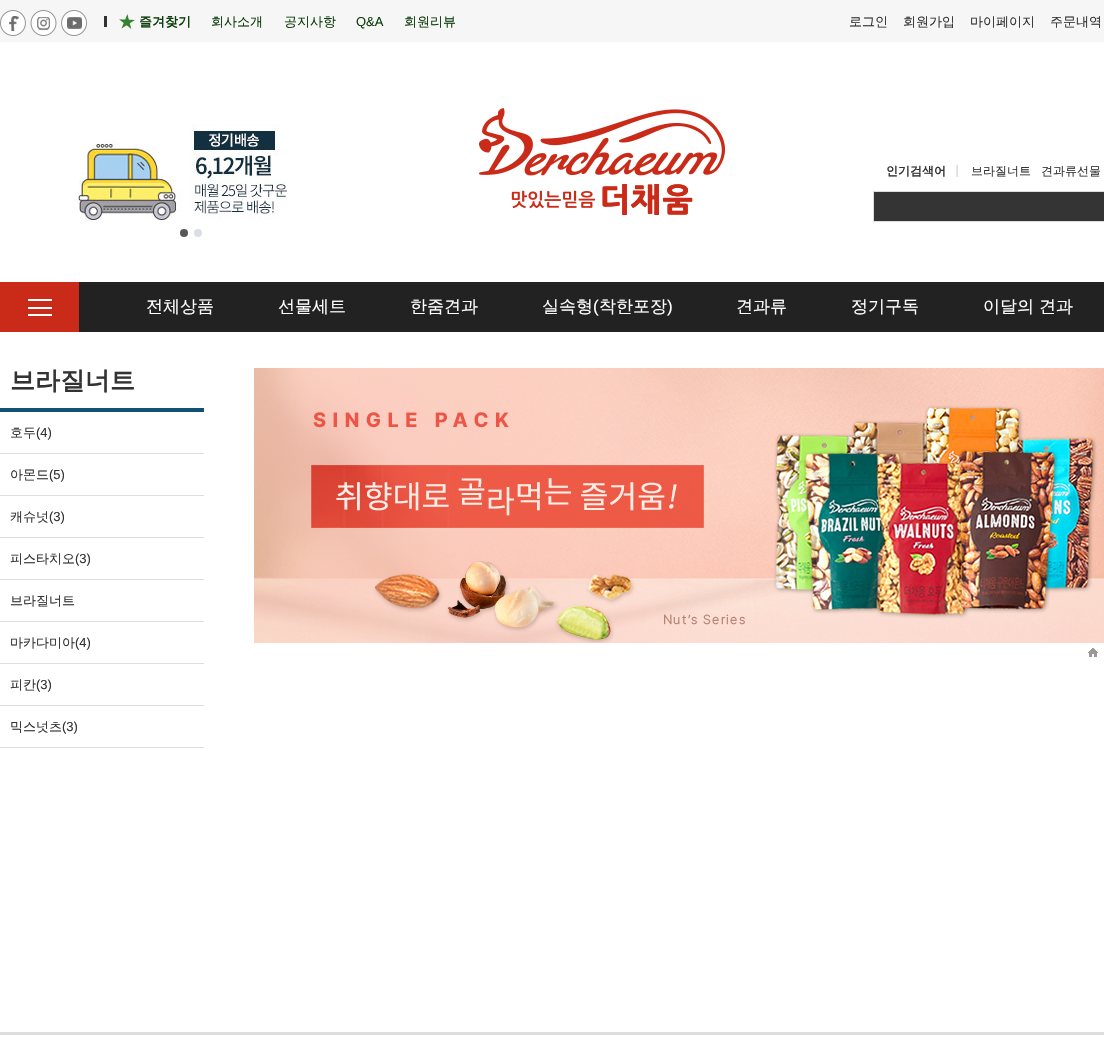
void draw(SkCanvas* canvas) {
  SkPaint paint;
  paint.setAntiAlias(true);
  auto face = [&](const char* family, int weight, float size, bool italic = false) {
    SkFontStyle style(weight, SkFontStyle::kNormal_Width,
      italic ? SkFontStyle::kItalic_Slant : SkFontStyle::kUpright_Slant);
    SkFont result(fontMgr->matchFamilyStyle(family, style), size);
    result.setSubpixel(true);
    return result;
  };
  auto paste = [&](const char* path, float x, float y, float w, float h) {
    auto image = SkImages::DeferredFromEncodedData(SkData::MakeFromFileName(path));
    canvas->drawImageRect(image, SkRect::MakeXYWH(x, y, w, h), SkSamplingOptions());
  };
  canvas->clear(0xffffffff);
  paint.setColor(0xfff6f6f6);
  canvas->drawRect(SkRect::MakeXYWH(0, 0, 1104, 42), paint);
  paint.setColor(0xff313131);
  canvas->drawRect(SkRect::MakeXYWH(104, 16, 3, 11), paint);
  paste("img/1.png", 0, 10, 26, 26);
  paste("img/2.png", 30, 10, 27, 26);
  paste("img/3.png", 61, 10, 26, 26);
  paste("img/4.png", 119, 14, 16, 15);
  paste("img/5.png", 78, 124, 209, 96);
  paint.setColor(0xff575757);
  canvas->drawCircle(184, 233, 4, paint);
  paint.setColor(0xffdcdee6);
  canvas->drawCircle(198, 233, 4, paint);
  paste("img/6.png", 479, 108, 246, 107);
  paste("img/7.png", 956, 165, 2, 12);
  paint.setColor(0xff343434);
  canvas->drawRect(SkRect::MakeXYWH(873.5f, 191.5f, 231, 30), paint);
  paint.setStroke(true);
  paint.setStrokeWidth(1);
  paint.setColor(0xffdcdcdc);
  canvas->drawRect(SkRect::MakeXYWH(873.5f, 191.5f, 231, 30), paint);
  paint.setStroke(false);
  paint.setColor(0xff222222);
  canvas->drawRect(SkRect::MakeXYWH(79, 282, 1025, 50), paint);
  paint.setColor(0xffca2b19);
  canvas->drawRect(SkRect::MakeXYWH(0, 282, 79, 50), paint);
  paste("img/8.png", 28, 299, 24, 17);
  {
    const struct { float x, y, w, h; SkColor color; } items[] = {
      {0, 408, 204, 4, 0xff135078},
      {0, 453, 204, 1, 0xffdedede},
      {0, 495, 204, 1, 0xffdedede},
      {0, 537, 204, 1, 0xffdedede},
      {0, 579, 204, 1, 0xffdedede},
      {0, 621, 204, 1, 0xffdedede},
      {0, 663, 204, 1, 0xffdedede},
      {0, 705, 204, 1, 0xffdedede},
      {0, 747, 204, 1, 0xffdedede},
    };
    for (auto [x, y, w, h, color] : items) {
      paint.setColor(color);
      canvas->drawRect(SkRect::MakeXYWH(x, y, w, h), paint);
    }
  }
  paste("img/9.png", 254, 368, 850, 275);
  paste("img/10.png", 1088, 648, 10, 9);
  paint.setColor(0xffdddddd);
  canvas->drawRect(SkRect::MakeXYWH(0, 1032, 1104, 3), paint);
  auto f0 = face("WenQuanYi Zen Hei", 700, 13);
  paint.setColor(0xff0d3d0a);
  canvas->drawString("즐겨찾기", 139, 26, f0, paint);
  auto f1 = face("WenQuanYi Zen Hei", 500, 13);
  canvas->drawString("회사소개", 211, 26, f1, paint);
  canvas->drawString("공지사항", 284, 26, f1, paint);
  auto f2 = face("Liberation Sans", 400, 13);
  canvas->drawString("Q&A", 356, 26, f2, paint);
  canvas->drawString("회원리뷰", 404, 26, f1, paint);
  paint.setColor(0xff333333);
  {
    const struct { const char* s; float x, y; } items[] = {
      {"로그인", 849, 26},
      {"회원가입", 903, 26},
      {"마이페이지", 970, 26},
      {"주문내역", 1050, 26},
    };
    for (auto [s, x, y] : items) {
      canvas->drawString(s, x, y, f1, paint);
    }
  }
  auto f3 = face("WenQuanYi Zen Hei", 700, 12);
  canvas->drawString("인기검색어", 886, 175, f3, paint);
  auto f4 = face("WenQuanYi Zen Hei", 500, 12);
  canvas->drawString("브라질너트", 971, 175, f4, paint);
  canvas->drawString("견과류선물", 1041, 175, f4, paint);
  auto f5 = face("WenQuanYi Zen Hei", 500, 17);
  paint.setColor(0xffffffff);
  {
    const struct { const char* s; float x, y; } items[] = {
      {"전체상품", 146, 312},
      {"선물세트", 278, 312},
      {"한줌견과", 410, 312},
      {"실속형", 542, 312},
    };
    for (auto [s, x, y] : items) {
      canvas->drawString(s, x, y, f5, paint);
    }
  }
  auto f6 = face("Liberation Sans", 400, 17);
  canvas->drawString("(", 593, 312, f6, paint);
  canvas->drawString("착한포장", 599, 312, f5, paint);
  canvas->drawString(")", 667, 312, f6, paint);
  {
    const struct { const char* s; float x, y; } items[] = {
      {"견과류", 736, 312},
      {"정기구독", 851, 312},
      {"이달의 견과", 983, 312},
    };
    for (auto [s, x, y] : items) {
      canvas->drawString(s, x, y, f5, paint);
    }
  }
  auto f7 = face("WenQuanYi Zen Hei", 700, 25);
  paint.setColor(0xff333333);
  canvas->drawString("브라질너트", 10, 389, f7, paint);
  canvas->drawString("호두", 10, 437, f1, paint);
  canvas->drawString("(4)", 36, 437, f2, paint);
  canvas->drawString("아몬드", 10, 479, f1, paint);
  canvas->drawString("(5)", 49, 479, f2, paint);
  canvas->drawString("캐슈넛", 10, 521, f1, paint);
  canvas->drawString("(3)", 49, 521, f2, paint);
  canvas->drawString("피스타치오", 10, 563, f1, paint);
  canvas->drawString("(3)", 75, 563, f2, paint);
  canvas->drawString("브라질너트", 10, 605, f1, paint);
  canvas->drawString("마카다미아", 10, 647, f1, paint);
  canvas->drawString("(4)", 75, 647, f2, paint);
  canvas->drawString("피칸", 10, 689, f1, paint);
  canvas->drawString("(3)", 36, 689, f2, paint);
  canvas->drawString("믹스넛츠", 10, 731, f1, paint);
  canvas->drawString("(3)", 62, 731, f2, paint);
}
